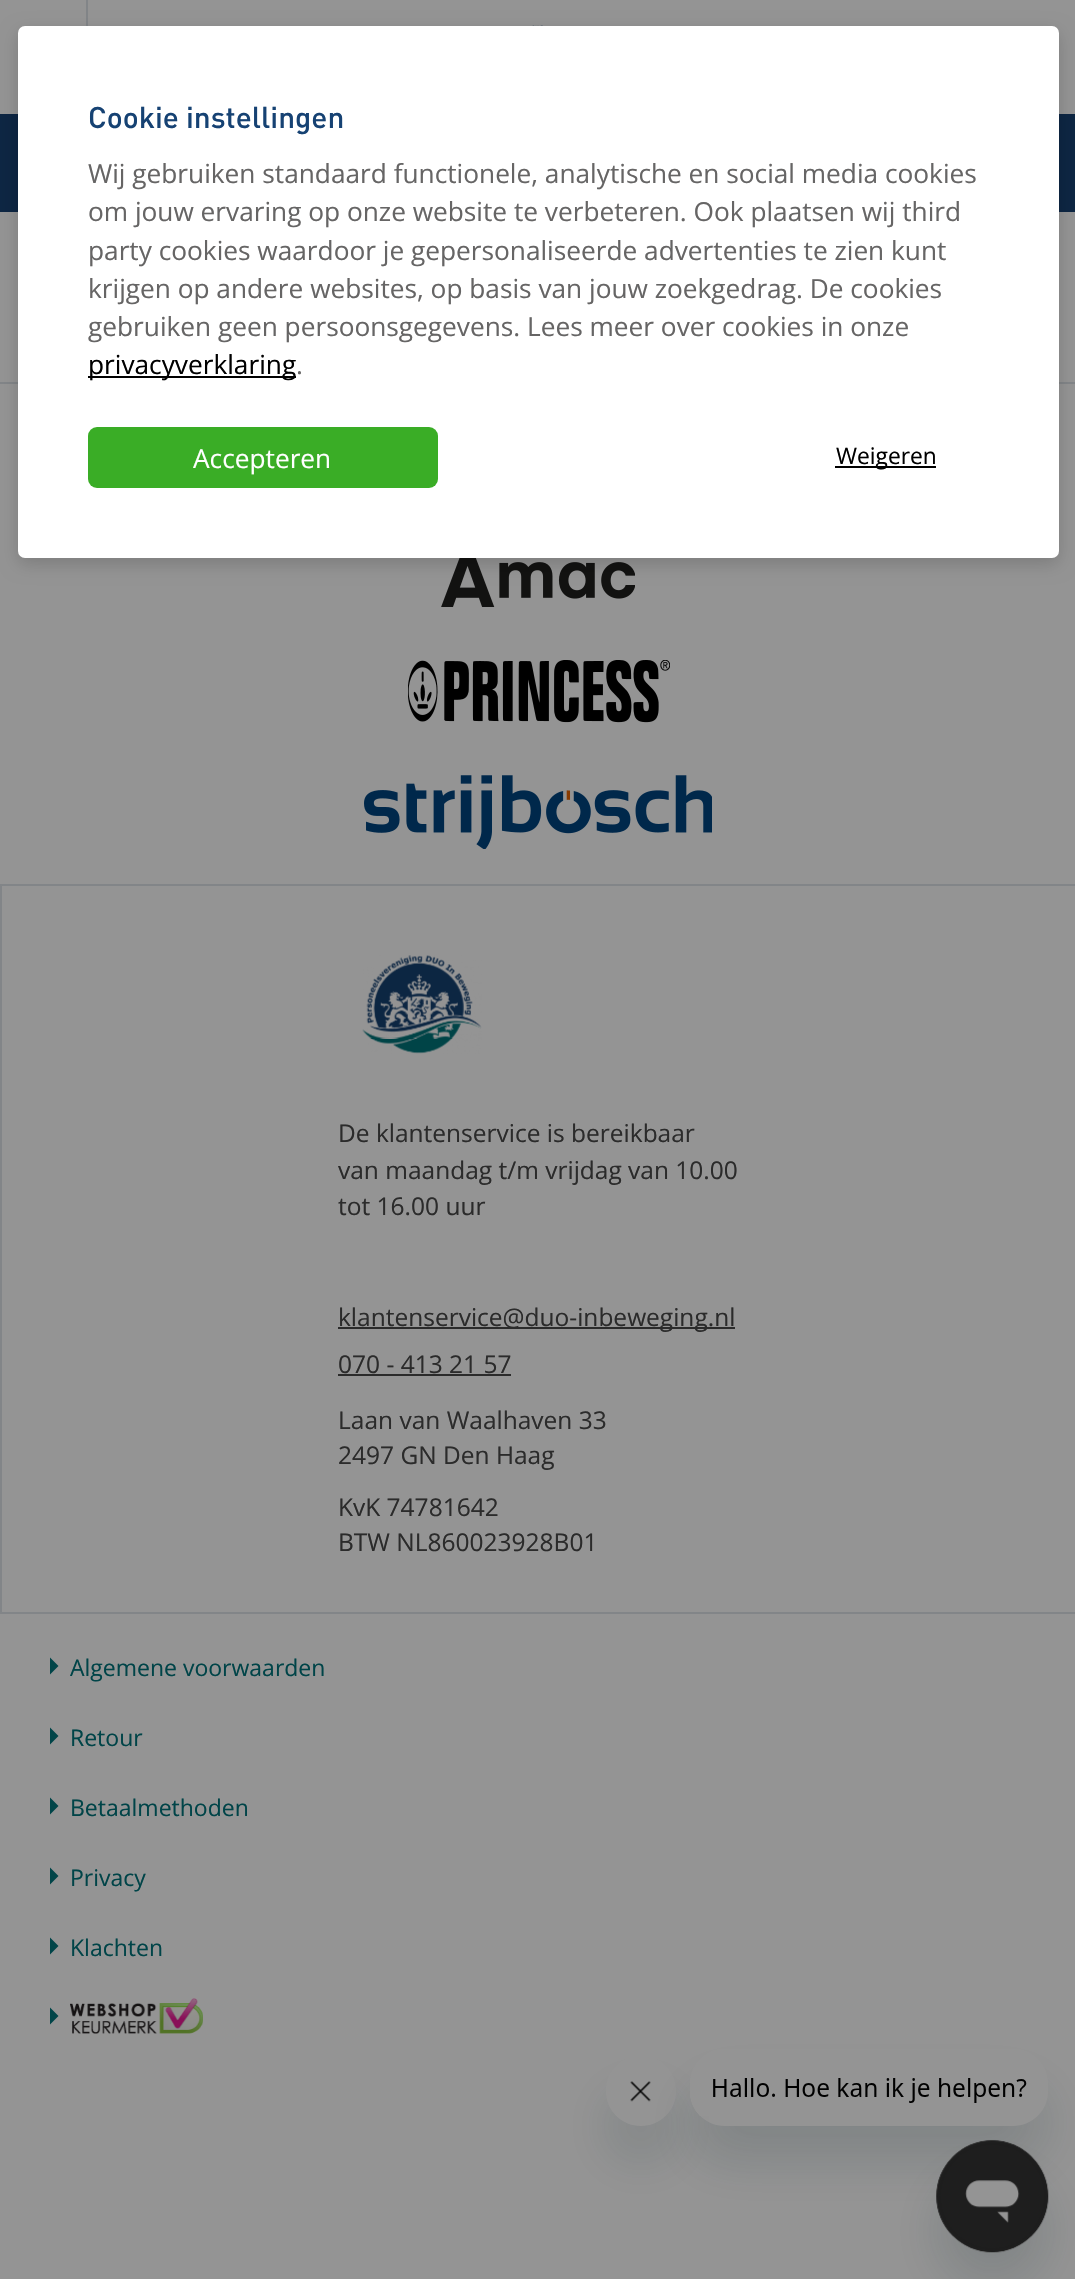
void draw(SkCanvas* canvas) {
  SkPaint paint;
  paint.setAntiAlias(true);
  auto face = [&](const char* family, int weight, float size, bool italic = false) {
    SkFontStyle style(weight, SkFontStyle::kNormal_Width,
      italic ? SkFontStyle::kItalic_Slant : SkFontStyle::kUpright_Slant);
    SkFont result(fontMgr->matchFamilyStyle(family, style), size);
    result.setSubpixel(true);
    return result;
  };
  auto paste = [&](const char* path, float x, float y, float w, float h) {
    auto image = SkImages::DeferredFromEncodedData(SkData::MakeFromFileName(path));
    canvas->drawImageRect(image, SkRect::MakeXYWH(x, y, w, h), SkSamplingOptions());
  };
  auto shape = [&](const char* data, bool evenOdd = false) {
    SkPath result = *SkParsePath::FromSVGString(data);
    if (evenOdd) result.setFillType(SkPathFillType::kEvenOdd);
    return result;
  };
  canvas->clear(0xff949494);
  paint.setColor(0xff828588);
  canvas->drawRect(SkRect::MakeXYWH(86, 0, 2, 26), paint);
  paste("img/1.png", 532, 25, 11, 1);
  paint.setColor(0xff0d2643);
  canvas->drawRect(SkRect::MakeXYWH(0, 114, 1075, 98), paint);
  paint.setColor(0xff828588);
  canvas->drawRect(SkRect::MakeXYWH(0, 382, 1075, 2), paint);
  paste("img/2.png", 441, 558, 194, 49);
  paint.setColor(0x29000000);
  paint.setMaskFilter(SkMaskFilter::MakeBlur(kNormal_SkBlurStyle, 9));
  canvas->drawRoundRect(SkRect::MakeXYWH(18, 32, 1041, 532), 7, 7, paint);
  paint.setMaskFilter(nullptr);
  paint.setColor(0xffffffff);
  canvas->drawRoundRect(SkRect::MakeXYWH(18, 26, 1041, 532), 7, 7, paint);
  paint.setColor(0xff000000);
  canvas->drawRect(SkRect::MakeXYWH(88, 376, 208, 2), paint);
  paint.setColor(0xff3aad26);
  canvas->drawRoundRect(SkRect::MakeXYWH(88, 427, 350, 61), 9, 9, paint);
  {
    const struct { float x, y, w, h; SkColor color; } items[] = {
      {835, 466, 101, 2, 0xff000000},
      {0, 1612, 1075, 2, 0xff828588},
      {0, 884, 1075, 2, 0xff828588},
    };
    for (auto [x, y, w, h, color] : items) {
      paint.setColor(color);
      canvas->drawRect(SkRect::MakeXYWH(x, y, w, h), paint);
    }
  }
  paste("img/3.png", 408, 660, 262, 63);
  paste("img/4.png", 364, 775, 348, 74);
  canvas->drawRect(SkRect::MakeXYWH(0, 886, 2, 726), paint);
  paste("img/5.png", 362, 955, 120, 99);
  paint.setColor(0xff2b2b2b);
  canvas->drawRect(SkRect::MakeXYWH(338, 1327, 397, 2), paint);
  canvas->drawRect(SkRect::MakeXYWH(338, 1374, 173, 2), paint);
  paint.setColor(0xff004448);
  canvas->drawPath(shape("M50 1657.5L58.5 1666L50 1674.5Z"), paint);
  canvas->drawPath(shape("M50 1727.5L58.5 1736L50 1744.5Z"), paint);
  canvas->drawPath(shape("M50 1797.5L58.5 1806L50 1814.5Z"), paint);
  canvas->drawPath(shape("M50 1867.5L58.5 1876L50 1884.5Z"), paint);
  canvas->drawPath(shape("M50 1937.5L58.5 1946L50 1954.5Z"), paint);
  canvas->drawPath(shape("M50 2007.5L58.5 2016L50 2024.5Z"), paint);
  paste("img/6.png", 70, 1998, 133, 36);
  canvas->save();
  canvas->clipPath(shape("M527 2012H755V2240H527ZM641 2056C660.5 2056 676 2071.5 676 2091C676 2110.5 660.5 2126 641 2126C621.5 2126 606 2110.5 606 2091C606 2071.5 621.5 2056 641 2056Z", true), true);
  paint.setColor(0x260d2a2d);
  paint.setMaskFilter(SkMaskFilter::MakeBlur(kNormal_SkBlurStyle, 26));
  canvas->drawRoundRect(SkRect::MakeXYWH(606, 2091, 70, 70), 35, 35, paint);
  paint.setMaskFilter(nullptr);
  canvas->restore();
  paste("img/8.png", 630, 2081, 21, 21);
  canvas->save();
  canvas->clipPath(shape("M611 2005H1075V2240H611ZM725 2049H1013C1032.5 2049 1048 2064.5 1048 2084V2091C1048 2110.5 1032.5 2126 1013 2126H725C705.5 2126 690 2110.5 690 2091V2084C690 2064.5 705.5 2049 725 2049Z", true), true);
  paint.setMaskFilter(SkMaskFilter::MakeBlur(kNormal_SkBlurStyle, 26));
  canvas->drawRoundRect(SkRect::MakeXYWH(690, 2084, 358, 77), 35, 35, paint);
  paint.setMaskFilter(nullptr);
  canvas->restore();
  paste("img/7.png", 690, 2078, 337, 38);
  paint.setMaskFilter(SkMaskFilter::MakeBlur(kNormal_SkBlurStyle, 26));
  canvas->drawRoundRect(SkRect::MakeXYWH(936, 2175, 112, 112), 56, 56, paint);
  paint.setMaskFilter(nullptr);
  paste("img/9.png", 936, 2140, 113, 113);
  auto f0 = face("DIN", 500, 29.75f);
  paint.setColor(0xff164273);
  canvas->drawString("Cookie instellingen", 88, 128, f0, paint);
  auto f1 = face("Open Sans", 400, 26.25f);
  paint.setColor(0xff666565);
  {
    const struct { const char* s; float x, y; } items[] = {
      {"Wij gebruiken standaard functionele, analytische en social media cookies", 88, 183},
      {"om jouw ervaring op onze website te verbeteren. Ook plaatsen wij third", 88, 221},
      {"party cookies waardoor je gepersonaliseerde advertenties te zien kunt", 88, 260},
      {"krijgen op andere websites, op basis van jouw zoekgedrag. De cookies", 88, 298},
      {"gebruiken geen persoonsgegevens. Lees meer over cookies in onze", 88, 336},
    };
    for (auto [s, x, y] : items) {
      canvas->drawString(s, x, y, f1, paint);
    }
  }
  paint.setColor(0xff000000);
  canvas->drawString("privacyverklaring", 88, 374, f1, paint);
  paint.setColor(0xff666565);
  canvas->drawString(".", 296, 374, f1, paint);
  paint.setColor(0xffffffff);
  canvas->drawString("Accepteren", 193, 468, f1, paint);
  auto f2 = face("Open Sans", 400, 22.75f);
  paint.setColor(0xff000000);
  canvas->drawString("Weigeren", 836, 464, f2, paint);
  auto f3 = face("Open Sans", 400, 24.5f);
  paint.setColor(0xff2b2b2b);
  {
    const struct { const char* s; float x, y; } items[] = {
      {"De klantenservice is bereikbaar", 338, 1142},
      {"van maandag t/m vrijdag van 10.00", 338, 1179},
      {"tot 16.00 uur", 338, 1215},
      {"klantenservice@duo-inbeweging.nl", 338, 1326},
      {"070 - 413 21 57", 338, 1373},
      {"Laan van Waalhaven 33", 338, 1429},
      {"2497 GN Den Haag", 338, 1464},
      {"KvK 74781642", 338, 1516},
      {"BTW NL860023928B01", 338, 1551},
    };
    for (auto [s, x, y] : items) {
      canvas->drawString(s, x, y, f3, paint);
    }
  }
  auto f4 = face("Open Sans", 400, 23);
  paint.setColor(0xff004448);
  {
    const struct { const char* s; float x, y; } items[] = {
      {"Algemene voorwaarden", 70, 1676},
      {"Retour", 70, 1746},
      {"Betaalmethoden", 70, 1816},
      {"Privacy", 70, 1886},
      {"Klachten", 70, 1956},
    };
    for (auto [s, x, y] : items) {
      canvas->drawString(s, x, y, f4, paint);
    }
  }
}
